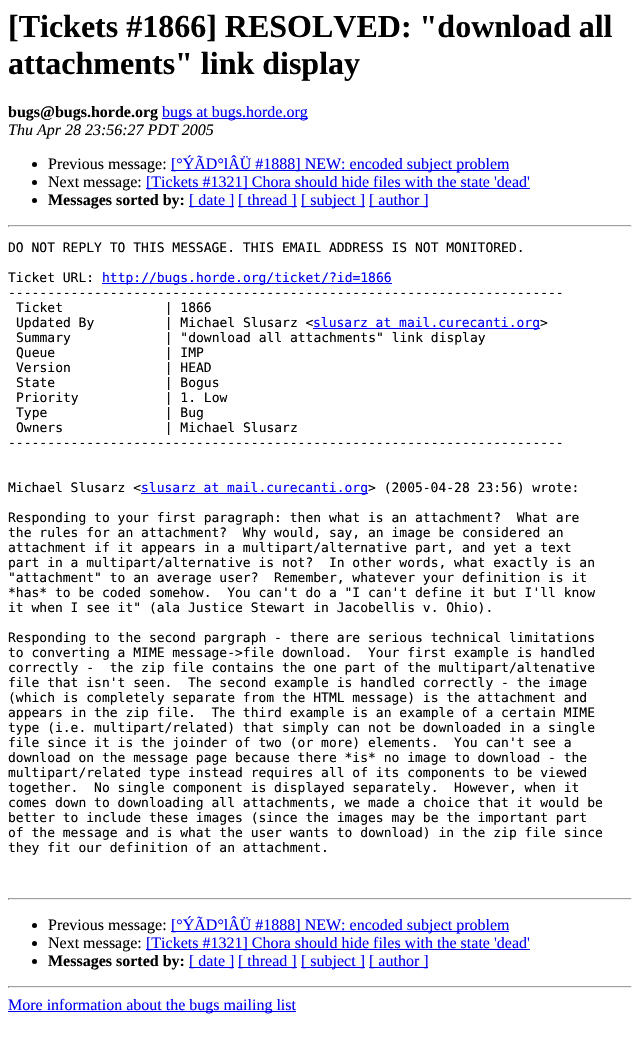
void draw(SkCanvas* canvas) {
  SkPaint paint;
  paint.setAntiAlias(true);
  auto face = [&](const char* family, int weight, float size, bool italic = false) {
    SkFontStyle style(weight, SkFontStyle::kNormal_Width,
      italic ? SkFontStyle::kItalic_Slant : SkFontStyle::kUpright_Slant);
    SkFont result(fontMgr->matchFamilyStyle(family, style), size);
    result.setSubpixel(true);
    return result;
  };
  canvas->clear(0xffffffff);
  paint.setColor(0xff0000ee);
  canvas->drawRect(SkRect::MakeXYWH(162, 118, 146, 1), paint);
  paint.setColor(0xff000000);
  canvas->drawCircle(34.5f, 164.5f, 2.5f, paint);
  paint.setColor(0xff0000ee);
  canvas->drawRect(SkRect::MakeXYWH(171, 170, 338, 1), paint);
  paint.setColor(0xff000000);
  canvas->drawCircle(34.5f, 182.5f, 2.5f, paint);
  paint.setColor(0xff0000ee);
  canvas->drawRect(SkRect::MakeXYWH(146, 188, 384, 1), paint);
  paint.setColor(0xff000000);
  canvas->drawCircle(34.5f, 200.5f, 2.5f, paint);
  {
    const struct { float x, y, w, h; SkColor color; } items[] = {
      {189, 206, 45, 1, 0xff0000ee},
      {238, 206, 59, 1, 0xff0000ee},
      {301, 206, 64, 1, 0xff0000ee},
      {369, 206, 59, 1, 0xff0000ee},
      {8, 225, 624, 1, 0xff9f9f9f},
      {631, 225, 1, 2, 0xffeeeeee},
      {8, 226, 624, 1, 0xffeeeeee},
      {8, 225, 1, 2, 0xff9f9f9f},
      {102, 283, 290, 1, 0xff0000ee},
      {313, 328, 227, 1, 0xff0000ee},
      {141, 493, 227, 1, 0xff0000ee},
      {8, 898, 624, 1, 0xff9f9f9f},
      {631, 898, 1, 2, 0xffeeeeee},
      {8, 899, 624, 1, 0xffeeeeee},
      {8, 898, 1, 2, 0xff9f9f9f},
    };
    for (auto [x, y, w, h, color] : items) {
      paint.setColor(color);
      canvas->drawRect(SkRect::MakeXYWH(x, y, w, h), paint);
    }
  }
  paint.setColor(0xff000000);
  canvas->drawCircle(34.5f, 925.5f, 2.5f, paint);
  paint.setColor(0xff0000ee);
  canvas->drawRect(SkRect::MakeXYWH(171, 931, 338, 1), paint);
  paint.setColor(0xff000000);
  canvas->drawCircle(34.5f, 943.5f, 2.5f, paint);
  paint.setColor(0xff0000ee);
  canvas->drawRect(SkRect::MakeXYWH(146, 949, 384, 1), paint);
  paint.setColor(0xff000000);
  canvas->drawCircle(34.5f, 961.5f, 2.5f, paint);
  {
    const struct { float x, y, w, h; SkColor color; } items[] = {
      {189, 967, 45, 1, 0xff0000ee},
      {238, 967, 59, 1, 0xff0000ee},
      {301, 967, 64, 1, 0xff0000ee},
      {369, 967, 59, 1, 0xff0000ee},
      {8, 986, 624, 1, 0xff9f9f9f},
      {631, 986, 1, 2, 0xffeeeeee},
      {8, 987, 624, 1, 0xffeeeeee},
      {8, 986, 1, 2, 0xff9f9f9f},
      {8, 1011, 288, 1, 0xff0000ee},
    };
    for (auto [x, y, w, h, color] : items) {
      paint.setColor(color);
      canvas->drawRect(SkRect::MakeXYWH(x, y, w, h), paint);
    }
  }
  auto f0 = face("Liberation Serif", 700, 32);
  paint.setColor(0xff000000);
  canvas->drawString("[Tickets #1866] RESOLVED: \"download all", 8, 37, f0, paint);
  canvas->drawString("attachments\" link display", 8, 74, f0, paint);
  auto f1 = face("Liberation Serif", 700, 16);
  canvas->drawString("bugs@bugs.horde.org", 8, 117, f1, paint);
  auto f2 = face("Liberation Serif", 400, 16);
  paint.setColor(0xff0000ee);
  canvas->drawString("bugs at bugs.horde.org", 162, 117, f2, paint);
  auto f3 = face("Liberation Serif", 400, 16, true);
  paint.setColor(0xff000000);
  canvas->drawString("Thu Apr 28 23:56:27 PDT 2005", 8, 135, f3, paint);
  canvas->drawString("Previous message:", 48, 169, f2, paint);
  paint.setColor(0xff0000ee);
  canvas->drawString("[°ÝÃD°lÂÜ #1888] NEW: encoded subject problem", 171, 169, f2, paint);
  paint.setColor(0xff000000);
  canvas->drawString("Next message:", 48, 187, f2, paint);
  paint.setColor(0xff0000ee);
  canvas->drawString("[Tickets #1321] Chora should hide files with the state 'dead'", 146, 187, f2, paint);
  paint.setColor(0xff000000);
  canvas->drawString("Messages sorted by:", 48, 205, f1, paint);
  paint.setColor(0xff0000ee);
  {
    const struct { const char* s; float x, y; } items[] = {
      {"[ date ]", 189, 205},
      {"[ thread ]", 238, 205},
      {"[ subject ]", 301, 205},
      {"[ author ]", 369, 205},
    };
    for (auto [s, x, y] : items) {
      canvas->drawString(s, x, y, f2, paint);
    }
  }
  auto f4 = face("DejaVu Sans Mono", 400, 13);
  paint.setColor(0xff000000);
  canvas->drawString("DO NOT REPLY TO THIS MESSAGE. THIS EMAIL ADDRESS IS NOT MONITORED.", 8, 252, f4, paint);
  canvas->drawString("Ticket URL:", 8, 282, f4, paint);
  paint.setColor(0xff0000ee);
  canvas->drawString("http://bugs.horde.org/ticket/?id=1866", 102, 282, f4, paint);
  paint.setColor(0xff000000);
  {
    const struct { const char* s; float x, y; } items[] = {
      {"-----------------------------------------------------------------------", 8, 297},
      {"Ticket             | 1866", 16, 312},
      {"Updated By         | Michael Slusarz <", 16, 327},
    };
    for (auto [s, x, y] : items) {
      canvas->drawString(s, x, y, f4, paint);
    }
  }
  paint.setColor(0xff0000ee);
  canvas->drawString("slusarz at mail.curecanti.org", 313, 327, f4, paint);
  paint.setColor(0xff000000);
  {
    const struct { const char* s; float x, y; } items[] = {
      {">", 540, 327},
      {"Summary            | \"download all attachments\" link display", 16, 342},
      {"Queue              | IMP", 16, 357},
      {"Version            | HEAD", 16, 372},
      {"State              | Bogus", 16, 387},
      {"Priority           | 1. Low", 16, 402},
      {"Type               | Bug", 16, 417},
      {"Owners             | Michael Slusarz", 16, 432},
      {"-----------------------------------------------------------------------", 8, 447},
      {"Michael Slusarz <", 8, 492},
    };
    for (auto [s, x, y] : items) {
      canvas->drawString(s, x, y, f4, paint);
    }
  }
  paint.setColor(0xff0000ee);
  canvas->drawString("slusarz at mail.curecanti.org", 141, 492, f4, paint);
  paint.setColor(0xff000000);
  {
    const struct { const char* s; float x, y; } items[] = {
      {"> (2005-04-28 23:56) wrote:", 368, 492},
      {"Responding to your first paragraph: then what is an attachment?  What are", 8, 522},
      {"the rules for an attachment?  Why would, say, an image be considered an", 8, 537},
      {"attachment if it appears in a multipart/alternative part, and yet a text", 8, 552},
      {"part in a multipart/alternative is not?  In other words, what exactly is an", 8, 567},
      {"\"attachment\" to an average user?  Remember, whatever your definition is it", 8, 582},
      {"*has* to be coded somehow.  You can't do a \"I can't define it but I'll know", 8, 597},
      {"it when I see it\" (ala Justice Stewart in Jacobellis v. Ohio).", 8, 612},
      {"Responding to the second pargraph - there are serious technical limitations", 8, 642},
      {"to converting a MIME message->file download.  Your first example is handled", 8, 657},
      {"correctly -  the zip file contains the one part of the multipart/altenative", 8, 672},
      {"file that isn't seen.  The second example is handled correctly - the image", 8, 687},
      {"(which is completely separate from the HTML message) is the attachment and", 8, 702},
      {"appears in the zip file.  The third example is an example of a certain MIME", 8, 717},
      {"type (i.e. multipart/related) that simply can not be downloaded in a single", 8, 732},
      {"file since it is the joinder of two (or more) elements.  You can't see a", 8, 747},
      {"download on the message page because there *is* no image to download - the", 8, 762},
      {"multipart/related type instead requires all of its components to be viewed", 8, 777},
      {"together.  No single component is displayed separately.  However, when it", 8, 792},
      {"comes down to downloading all attachments, we made a choice that it would be", 8, 807},
      {"better to include these images (since the images may be the important part", 8, 822},
      {"of the message and is what the user wants to download) in the zip file since", 8, 837},
      {"they fit our definition of an attachment.", 8, 852},
    };
    for (auto [s, x, y] : items) {
      canvas->drawString(s, x, y, f4, paint);
    }
  }
  canvas->drawString("Previous message:", 48, 930, f2, paint);
  paint.setColor(0xff0000ee);
  canvas->drawString("[°ÝÃD°lÂÜ #1888] NEW: encoded subject problem", 171, 930, f2, paint);
  paint.setColor(0xff000000);
  canvas->drawString("Next message:", 48, 948, f2, paint);
  paint.setColor(0xff0000ee);
  canvas->drawString("[Tickets #1321] Chora should hide files with the state 'dead'", 146, 948, f2, paint);
  paint.setColor(0xff000000);
  canvas->drawString("Messages sorted by:", 48, 966, f1, paint);
  paint.setColor(0xff0000ee);
  {
    const struct { const char* s; float x, y; } items[] = {
      {"[ date ]", 189, 966},
      {"[ thread ]", 238, 966},
      {"[ subject ]", 301, 966},
      {"[ author ]", 369, 966},
      {"More information about the bugs mailing list", 8, 1010},
    };
    for (auto [s, x, y] : items) {
      canvas->drawString(s, x, y, f2, paint);
    }
  }
}
